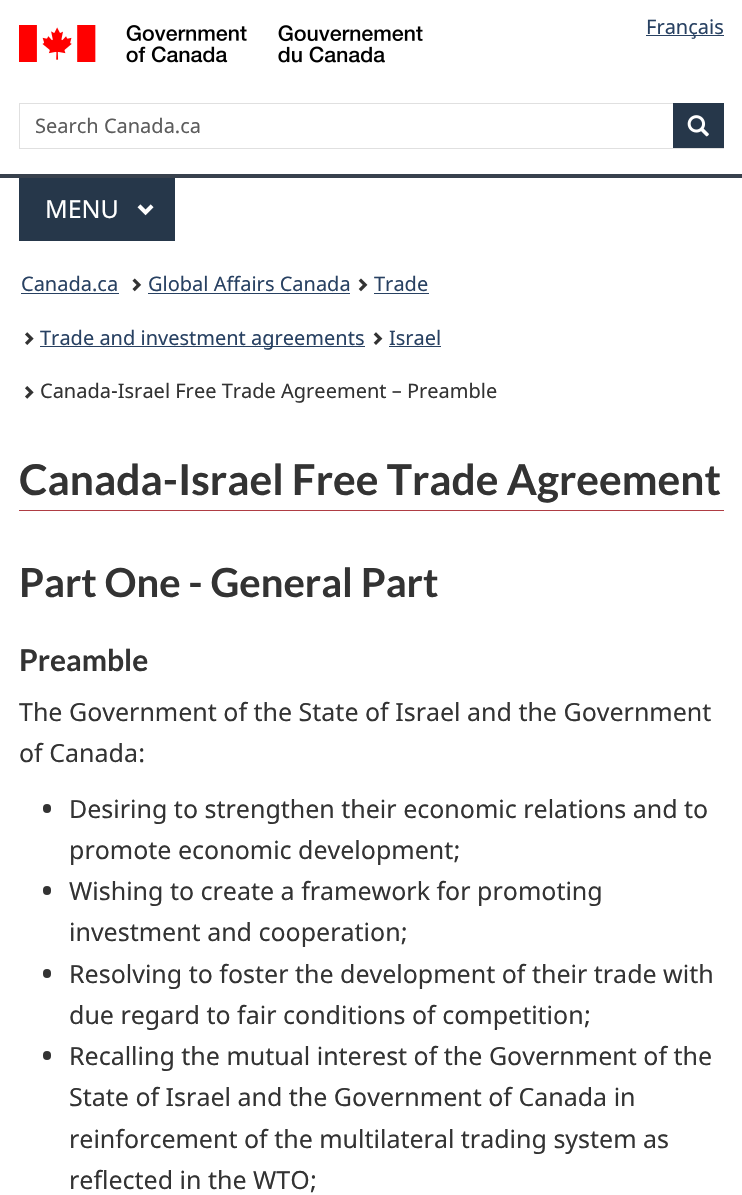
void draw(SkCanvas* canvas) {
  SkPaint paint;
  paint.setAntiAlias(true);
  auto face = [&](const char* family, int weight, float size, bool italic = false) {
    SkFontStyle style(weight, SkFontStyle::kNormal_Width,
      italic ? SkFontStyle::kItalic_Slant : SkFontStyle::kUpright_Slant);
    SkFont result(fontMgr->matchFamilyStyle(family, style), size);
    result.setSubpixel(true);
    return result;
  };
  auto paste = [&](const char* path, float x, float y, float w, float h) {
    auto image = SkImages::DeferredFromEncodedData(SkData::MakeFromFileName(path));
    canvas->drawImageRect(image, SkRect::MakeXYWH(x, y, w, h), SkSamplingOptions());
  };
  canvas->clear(0xffffffff);
  paste("img/1.png", 19, 25, 404, 38);
  paint.setColor(0xff284162);
  canvas->drawRect(SkRect::MakeXYWH(646, 35, 78, 1), paint);
  paint.setStroke(true);
  paint.setStrokeWidth(1);
  paint.setColor(0xffe0e0e0);
  canvas->drawRect(SkRect::MakeXYWH(19.5f, 103.5f, 704, 45), paint);
  paint.setStroke(false);
  paint.setColor(0xff26374a);
  canvas->drawRect(SkRect::MakeXYWH(673, 103, 51, 45), paint);
  paste("img/2.png", 687, 115, 22, 22);
  paint.setColor(0xff38414d);
  canvas->drawRect(SkRect::MakeXYWH(0, 174, 742, 4), paint);
  paint.setColor(0xff26374a);
  canvas->drawRect(SkRect::MakeXYWH(19, 178, 156, 63), paint);
  paste("img/3.png", 137, 204, 17, 12);
  paint.setColor(0xff284162);
  canvas->drawRect(SkRect::MakeXYWH(21, 293, 98, 1), paint);
  paste("img/4.png", 132, 278, 10, 14);
  canvas->drawRect(SkRect::MakeXYWH(148, 293, 202, 1), paint);
  paste("img/5.png", 358, 278, 10, 14);
  canvas->drawRect(SkRect::MakeXYWH(374, 293, 55, 1), paint);
  paste("img/6.png", 25, 332, 9, 13);
  canvas->drawRect(SkRect::MakeXYWH(40, 346, 325, 1), paint);
  paste("img/7.png", 373, 332, 10, 13);
  canvas->drawRect(SkRect::MakeXYWH(389, 346, 52, 1), paint);
  paste("img/8.png", 25, 386, 9, 13);
  paint.setColor(0xffaf3c43);
  canvas->drawRect(SkRect::MakeXYWH(19, 510, 705, 1), paint);
  paint.setColor(0xff333333);
  canvas->drawRoundRect(SkRect::MakeXYWH(43, 804, 8, 9), 4, 4, paint);
  canvas->drawRoundRect(SkRect::MakeXYWH(43, 886, 8, 9), 4, 4, paint);
  canvas->drawRoundRect(SkRect::MakeXYWH(43, 969, 8, 9), 4, 4, paint);
  canvas->drawRoundRect(SkRect::MakeXYWH(43, 1051, 8, 9), 4, 4, paint);
  auto f0 = face("Noto Sans", 400, 20);
  paint.setColor(0xff284162);
  canvas->drawString("Français", 646, 34, f0, paint);
  paint.setColor(0xff5c5c5c);
  canvas->drawString("Search Canada.ca", 35, 133, f0, paint);
  auto f1 = face("Noto Sans", 400, 25);
  paint.setColor(0xffffffff);
  canvas->drawString("MENU", 45, 218, f1, paint);
  paint.setColor(0xff284162);
  {
    const struct { const char* s; float x, y; } items[] = {
      {"Canada.ca", 21, 291},
      {"Global Affairs Canada", 148, 291},
      {"Trade", 374, 291},
      {"Trade and investment agreements", 40, 345},
      {"Israel", 389, 345},
    };
    for (auto [s, x, y] : items) {
      canvas->drawString(s, x, y, f0, paint);
    }
  }
  paint.setColor(0xff333333);
  canvas->drawString("Canada-Israel Free Trade Agreement – Preamble", 40, 398, f0, paint);
  auto f2 = face("Lato", 700, 42.5f);
  canvas->drawString("Canada-Israel Free Trade Agreement", 19, 495, f2, paint);
  auto f3 = face("Lato", 700, 40);
  canvas->drawString("Part One - General Part", 19, 597, f3, paint);
  auto f4 = face("Lato", 700, 30);
  canvas->drawString("Preamble", 19, 671, f4, paint);
  {
    const struct { const char* s; float x, y; } items[] = {
      {"The Government of the State of Israel and the Government", 19, 721},
      {"of Canada:", 19, 762},
      {"Desiring to strengthen their economic relations and to", 69, 818},
      {"promote economic development;", 69, 859},
      {"Wishing to create a framework for promoting", 69, 900},
      {"investment and cooperation;", 69, 941},
      {"Resolving to foster the development of their trade with", 69, 983},
      {"due regard to fair conditions of competition;", 69, 1024},
      {"Recalling the mutual interest of the Government of the", 69, 1065},
      {"State of Israel and the Government of Canada in", 69, 1106},
      {"reinforcement of the multilateral trading system as", 69, 1148},
      {"reflected in the WTO;", 69, 1189},
    };
    for (auto [s, x, y] : items) {
      canvas->drawString(s, x, y, f1, paint);
    }
  }
}
